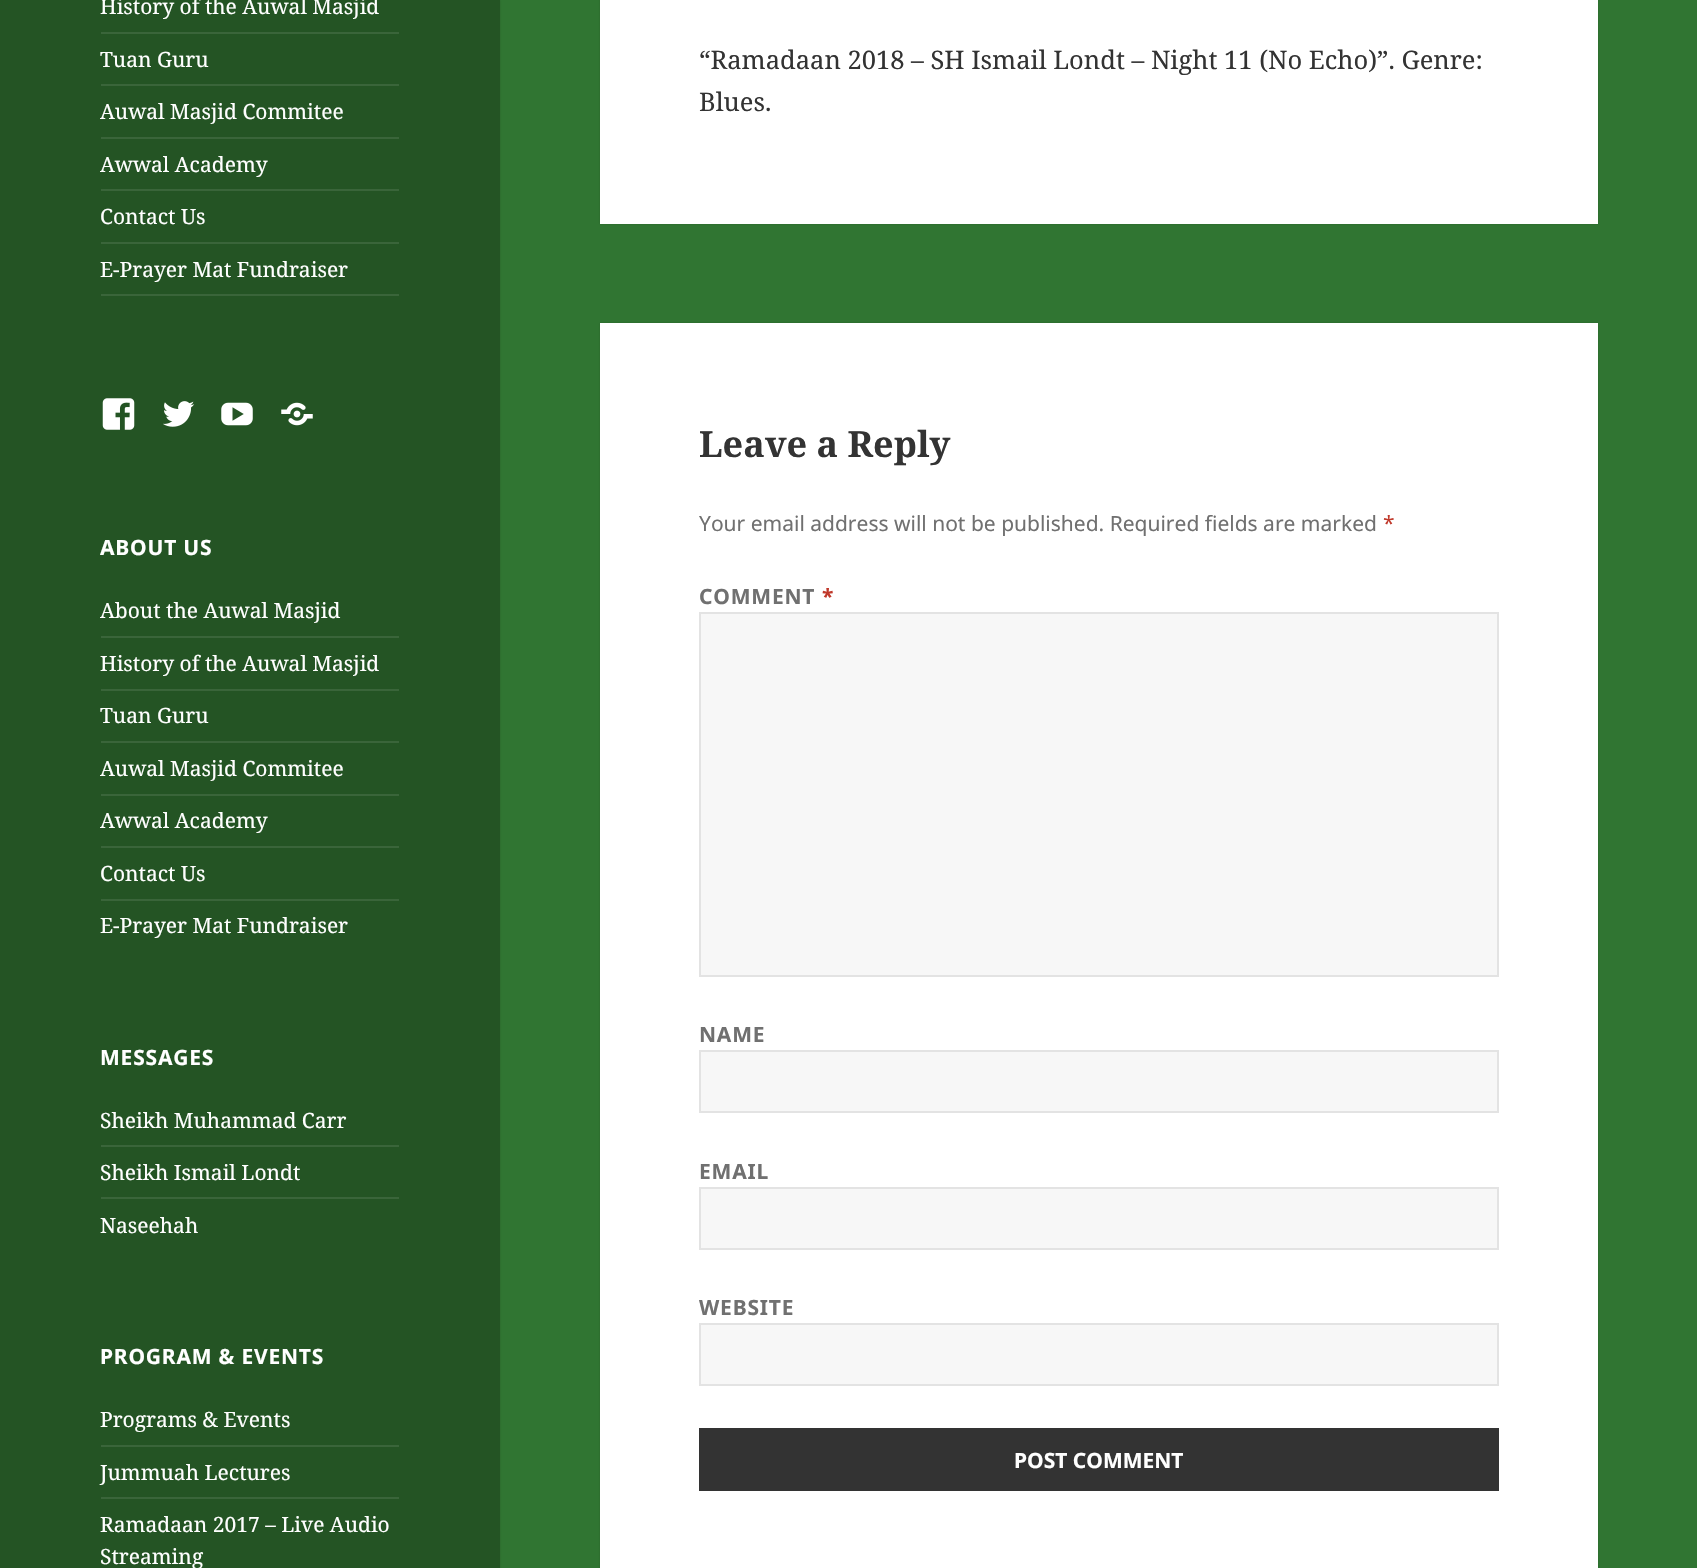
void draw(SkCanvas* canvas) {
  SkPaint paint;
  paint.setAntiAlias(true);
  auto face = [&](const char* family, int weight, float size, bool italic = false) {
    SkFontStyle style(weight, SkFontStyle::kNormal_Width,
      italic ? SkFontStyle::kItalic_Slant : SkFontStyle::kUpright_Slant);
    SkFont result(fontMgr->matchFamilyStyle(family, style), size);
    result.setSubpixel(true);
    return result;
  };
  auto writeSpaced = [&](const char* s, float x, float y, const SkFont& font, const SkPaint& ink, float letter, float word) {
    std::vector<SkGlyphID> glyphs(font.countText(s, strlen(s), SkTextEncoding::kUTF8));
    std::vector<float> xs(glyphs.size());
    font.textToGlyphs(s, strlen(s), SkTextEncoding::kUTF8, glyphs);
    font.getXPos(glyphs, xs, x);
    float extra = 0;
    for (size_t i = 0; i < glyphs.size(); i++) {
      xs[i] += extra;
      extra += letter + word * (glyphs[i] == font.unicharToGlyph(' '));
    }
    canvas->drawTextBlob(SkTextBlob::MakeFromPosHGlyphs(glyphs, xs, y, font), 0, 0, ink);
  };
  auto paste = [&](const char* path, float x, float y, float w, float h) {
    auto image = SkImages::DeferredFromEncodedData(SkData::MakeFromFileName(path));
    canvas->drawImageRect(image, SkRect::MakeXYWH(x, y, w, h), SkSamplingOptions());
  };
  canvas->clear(0xff307532);
  paint.setColor(0x26000000);
  paint.setMaskFilter(SkMaskFilter::MakeBlur(kNormal_SkBlurStyle, 1));
  canvas->drawRect(SkRect::MakeXYWH(0, 0, 500, 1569), paint);
  paint.setMaskFilter(nullptr);
  {
    const struct { float x, y, w, h; SkColor color; } items[] = {
      {0, 0, 500, 1568, 0xff245424},
      {101, 294, 298, 2, 0xff3a653a},
      {101, 32, 298, 2, 0xff3a653a},
      {101, 84, 298, 2, 0xff3a653a},
      {101, 137, 298, 2, 0xff3a653a},
      {101, 189, 298, 2, 0xff3a653a},
      {101, 242, 298, 2, 0xff3a653a},
    };
    for (auto [x, y, w, h, color] : items) {
      paint.setColor(color);
      canvas->drawRect(SkRect::MakeXYWH(x, y, w, h), paint);
    }
  }
  paste("img/1.png", 102, 398, 33, 32);
  paste("img/2.png", 163, 401, 32, 26);
  paste("img/3.png", 221, 402, 32, 24);
  paste("img/4.png", 281, 402, 32, 24);
  {
    const struct { float x, y, w, h; SkColor color; } items[] = {
      {101, 636, 298, 2, 0xff3a653a},
      {101, 689, 298, 2, 0xff3a653a},
      {101, 741, 298, 2, 0xff3a653a},
      {101, 794, 298, 2, 0xff3a653a},
      {101, 846, 298, 2, 0xff3a653a},
      {101, 899, 298, 2, 0xff3a653a},
      {101, 1145, 298, 2, 0xff3a653a},
      {101, 1197, 298, 2, 0xff3a653a},
      {101, 1445, 298, 2, 0xff3a653a},
      {101, 1497, 298, 2, 0xff3a653a},
    };
    for (auto [x, y, w, h, color] : items) {
      paint.setColor(color);
      canvas->drawRect(SkRect::MakeXYWH(x, y, w, h), paint);
    }
  }
  paint.setColor(0x26000000);
  paint.setMaskFilter(SkMaskFilter::MakeBlur(kNormal_SkBlurStyle, 1));
  canvas->drawRect(SkRect::MakeXYWH(600, -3, 998, 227), paint);
  paint.setMaskFilter(nullptr);
  paint.setColor(0xffffffff);
  canvas->drawRect(SkRect::MakeXYWH(600, 0, 998, 224), paint);
  paint.setColor(0x26000000);
  paint.setMaskFilter(SkMaskFilter::MakeBlur(kNormal_SkBlurStyle, 1));
  canvas->drawRect(SkRect::MakeXYWH(600, 323, 998, 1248), paint);
  paint.setMaskFilter(nullptr);
  paint.setColor(0xffffffff);
  canvas->drawRect(SkRect::MakeXYWH(600, 323, 998, 1245), paint);
  paint.setColor(0xfff7f7f7);
  canvas->drawRect(SkRect::MakeXYWH(700, 613, 798, 363), paint);
  paint.setStroke(true);
  paint.setStrokeWidth(2);
  paint.setColor(0xffe3e3e3);
  canvas->drawRect(SkRect::MakeXYWH(700, 613, 798, 363), paint);
  paint.setStroke(false);
  paint.setColor(0xfff7f7f7);
  canvas->drawRect(SkRect::MakeXYWH(700, 1051, 798, 61), paint);
  paint.setStroke(true);
  paint.setColor(0xffe3e3e3);
  canvas->drawRect(SkRect::MakeXYWH(700, 1051, 798, 61), paint);
  paint.setStroke(false);
  paint.setColor(0xfff7f7f7);
  canvas->drawRect(SkRect::MakeXYWH(700, 1188, 798, 61), paint);
  paint.setStroke(true);
  paint.setColor(0xffe3e3e3);
  canvas->drawRect(SkRect::MakeXYWH(700, 1188, 798, 61), paint);
  paint.setStroke(false);
  paint.setColor(0xfff7f7f7);
  canvas->drawRect(SkRect::MakeXYWH(700, 1324, 798, 61), paint);
  paint.setStroke(true);
  paint.setColor(0xffe3e3e3);
  canvas->drawRect(SkRect::MakeXYWH(700, 1324, 798, 61), paint);
  paint.setStroke(false);
  paint.setColor(0xff333333);
  canvas->drawRect(SkRect::MakeXYWH(699, 1428, 800, 63), paint);
  auto f0 = face("Noto Serif", 400, 21);
  paint.setColor(0xffffffff);
  {
    const struct { const char* s; float x, y; } items[] = {
      {"History of the Auwal Masjid", 100, 14},
      {"Tuan Guru", 100, 67},
      {"Auwal Masjid Commitee", 100, 119},
      {"Awwal Academy", 100, 172},
      {"Contact Us", 100, 224},
      {"E-Prayer Mat Fundraiser", 100, 277},
    };
    for (auto [s, x, y] : items) {
      canvas->drawString(s, x, y, f0, paint);
    }
  }
  auto f1 = face("Noto Sans", 700, 21);
  writeSpaced("ABOUT US", 100, 555, f1, paint, 0.8f, 0);
  {
    const struct { const char* s; float x, y; } items[] = {
      {"About the Auwal Masjid", 100, 618},
      {"History of the Auwal Masjid", 100, 671},
      {"Tuan Guru", 100, 723},
      {"Auwal Masjid Commitee", 100, 776},
      {"Awwal Academy", 100, 828},
      {"Contact Us", 100, 881},
      {"E-Prayer Mat Fundraiser", 100, 933},
    };
    for (auto [s, x, y] : items) {
      canvas->drawString(s, x, y, f0, paint);
    }
  }
  writeSpaced("MESSAGES", 100, 1065, f1, paint, 0.8f, 0);
  {
    const struct { const char* s; float x, y; } items[] = {
      {"Sheikh Muhammad Carr", 100, 1128},
      {"Sheikh Ismail Londt", 100, 1180},
      {"Naseehah", 100, 1233},
    };
    for (auto [s, x, y] : items) {
      canvas->drawString(s, x, y, f0, paint);
    }
  }
  writeSpaced("PROGRAM & EVENTS", 100, 1364, f1, paint, 0.8f, 0);
  {
    const struct { const char* s; float x, y; } items[] = {
      {"Programs & Events", 100, 1427},
      {"Jummuah Lectures", 100, 1480},
      {"Ramadaan 2017 – Live Audio", 100, 1532},
      {"Streaming", 100, 1564},
    };
    for (auto [s, x, y] : items) {
      canvas->drawString(s, x, y, f0, paint);
    }
  }
  auto f2 = face("Noto Serif", 400, 25.5f);
  paint.setColor(0xff333333);
  canvas->drawString("“Ramadaan 2018 – SH Ismail Londt – Night 11 (No Echo)”. Genre:", 699, 69, f2, paint);
  canvas->drawString("Blues.", 699, 111, f2, paint);
  auto f3 = face("Noto Serif", 700, 36);
  canvas->drawString("Leave a Reply", 699, 457, f3, paint);
  auto f4 = face("Noto Sans", 400, 21);
  paint.setColor(0xff707070);
  canvas->drawString("Your email address will not be published. Required fields are marked", 699, 531, f4, paint);
  paint.setColor(0xffc0392b);
  canvas->drawString("*", 1383, 531, f4, paint);
  paint.setColor(0xff707070);
  writeSpaced("COMMENT", 699, 604, f1, paint, 0.8f, 0);
  paint.setColor(0xffc0392b);
  writeSpaced("*", 822, 604, f1, paint, 0.8f, 0);
  paint.setColor(0xff707070);
  {
    const struct { const char* s; float x, y; } items[] = {
      {"NAME", 699, 1042},
      {"EMAIL", 699, 1179},
      {"WEBSITE", 699, 1315},
    };
    for (auto [s, x, y] : items) {
      writeSpaced(s, x, y, f1, paint, 0.8f, 0);
    }
  }
  paint.setColor(0xffffffff);
  canvas->drawString("POST COMMENT", 1014, 1468, f1, paint);
}
